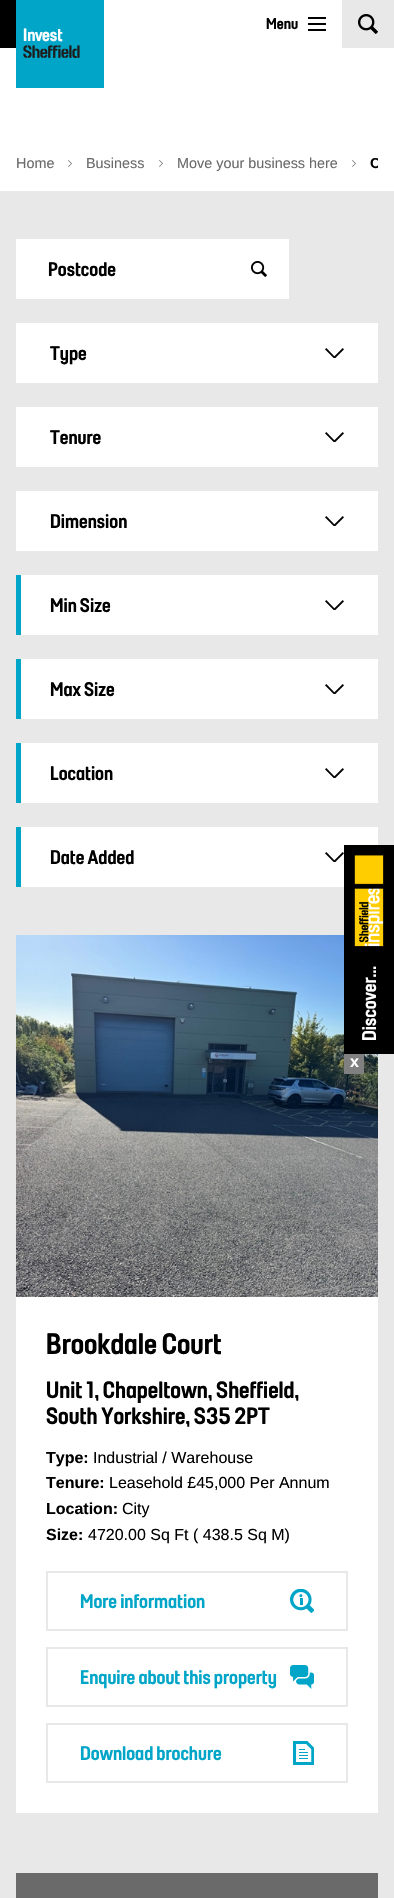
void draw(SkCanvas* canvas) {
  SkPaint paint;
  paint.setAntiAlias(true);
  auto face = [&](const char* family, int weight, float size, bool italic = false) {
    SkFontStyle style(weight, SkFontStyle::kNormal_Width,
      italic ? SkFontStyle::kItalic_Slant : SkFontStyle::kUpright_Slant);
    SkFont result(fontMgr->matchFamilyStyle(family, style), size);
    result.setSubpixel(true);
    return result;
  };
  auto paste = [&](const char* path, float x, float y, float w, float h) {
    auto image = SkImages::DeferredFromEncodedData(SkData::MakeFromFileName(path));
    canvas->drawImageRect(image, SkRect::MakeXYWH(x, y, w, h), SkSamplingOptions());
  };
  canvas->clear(0xffffffff);
  {
    const struct { float x, y, w, h; SkColor color; } items[] = {
      {0, 0, 16, 48, 0xff000000},
      {308, 23, 18, 2, 0xff000000},
      {308, 17, 18, 2, 0xff000000},
      {308, 29, 18, 2, 0xff000000},
      {342, 0, 52, 48, 0xffe8e8e8},
    };
    for (auto [x, y, w, h, color] : items) {
      paint.setColor(color);
      canvas->drawRect(SkRect::MakeXYWH(x, y, w, h), paint);
    }
  }
  paste("img/1.png", 358, 14, 20, 20);
  paste("img/2.png", 16, 0, 88, 88);
  paste("img/3.png", 68, 160, 4, 7);
  paste("img/3.png", 159, 160, 4, 7);
  paste("img/3.png", 352, 160, 4, 7);
  canvas->drawRect(SkRect::MakeXYWH(0, 191, 394, 1707), paint);
  paint.setColor(0xffffffff);
  canvas->drawRect(SkRect::MakeXYWH(16, 239, 273, 60), paint);
  paste("img/4.png", 251, 261, 16, 16);
  canvas->drawRect(SkRect::MakeXYWH(16, 323, 362, 60), paint);
  paste("img/5.png", 325, 348, 19, 10);
  canvas->drawRect(SkRect::MakeXYWH(16, 407, 362, 60), paint);
  paste("img/5.png", 325, 432, 19, 10);
  canvas->drawRect(SkRect::MakeXYWH(16, 491, 362, 60), paint);
  paste("img/5.png", 325, 516, 19, 10);
  paint.setColor(0xff00a5c8);
  canvas->drawRect(SkRect::MakeXYWH(16, 575, 5, 60), paint);
  paint.setColor(0xffffffff);
  canvas->drawRect(SkRect::MakeXYWH(21, 575, 357, 60), paint);
  paste("img/5.png", 325, 600, 19, 10);
  paint.setColor(0xff00a5c8);
  canvas->drawRect(SkRect::MakeXYWH(16, 659, 5, 60), paint);
  paint.setColor(0xffffffff);
  canvas->drawRect(SkRect::MakeXYWH(21, 659, 357, 60), paint);
  paste("img/5.png", 325, 684, 19, 10);
  paint.setColor(0xff00a5c8);
  canvas->drawRect(SkRect::MakeXYWH(16, 743, 5, 60), paint);
  paint.setColor(0xffffffff);
  canvas->drawRect(SkRect::MakeXYWH(21, 743, 357, 60), paint);
  paste("img/5.png", 325, 768, 19, 10);
  paint.setColor(0xff00a5c8);
  canvas->drawRect(SkRect::MakeXYWH(16, 827, 5, 60), paint);
  paint.setColor(0xffffffff);
  canvas->drawRect(SkRect::MakeXYWH(21, 827, 357, 60), paint);
  paste("img/5.png", 325, 852, 19, 10);
  paste("img/6.png", 16, 935, 362, 362);
  canvas->drawRect(SkRect::MakeXYWH(16, 1297, 362, 516), paint);
  paint.setStroke(true);
  paint.setStrokeWidth(2);
  paint.setColor(0xffe8e8e8);
  canvas->drawRect(SkRect::MakeXYWH(47, 1572, 300, 58), paint);
  paste("img/7.png", 290, 1589, 24, 24);
  canvas->drawRect(SkRect::MakeXYWH(47, 1648, 300, 58), paint);
  paste("img/8.png", 290, 1665, 24, 24);
  canvas->drawRect(SkRect::MakeXYWH(47, 1724, 300, 58), paint);
  paste("img/9.png", 293, 1741, 21, 24);
  paint.setColor(0xff6a6a6a);
  canvas->drawRect(SkRect::MakeXYWH(17, 1874, 360, 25), paint);
  paint.setStroke(false);
  canvas->drawRect(SkRect::MakeXYWH(18, 1875, 358, 23), paint);
  paint.setColor(0xff000000);
  canvas->drawRect(SkRect::MakeXYWH(344, 845, 50, 209), paint);
  paste("img/10.png", 354, 855, 30, 92);
  paint.setColor(0xff808080);
  canvas->drawRect(SkRect::MakeXYWH(344, 1054, 20, 20), paint);
  auto f0 = face("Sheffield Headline", 400, 16);
  paint.setColor(0xff000000);
  canvas->drawString("Menu", 266, 29, f0, paint);
  auto f1 = face("Sheffield Headline", 400, 18);
  paint.setColor(0xffffffff);
  {
    const struct { const char* s; float x, y; } items[] = {
      {"In", 23, 41},
      {"v", 35, 41},
      {"est", 42, 41},
    };
    for (auto [s, x, y] : items) {
      canvas->drawString(s, x, y, f1, paint);
    }
  }
  auto f2 = face("Liberation Sans", 400, 14.4f);
  paint.setColor(0xff6a6a6a);
  {
    const struct { const char* s; float x, y; } items[] = {
      {"Home", 16, 168},
      {"Business", 86, 168},
      {"Move your business here", 177, 168},
    };
    for (auto [s, x, y] : items) {
      canvas->drawString(s, x, y, f2, paint);
    }
  }
  canvas->save();
  canvas->clipRect(SkRect::MakeXYWH(16, 136, 362, 55));
  auto f3 = face("Liberation Sans", 700, 14.4f);
  paint.setColor(0xff000000);
  canvas->drawString("C", 370, 168, f3, paint);
  canvas->restore();
  auto f4 = face("Sheffield Headline", 400, 20);
  {
    const struct { const char* s; float x, y; } items[] = {
      {"Postcode", 48, 276},
      {"Type", 50, 360},
      {"Tenure", 50, 444},
      {"Dimension", 50, 528},
      {"Min Size", 50, 612},
      {"Max Size", 50, 696},
      {"Location", 50, 780},
      {"Date Added", 50, 864},
    };
    for (auto [s, x, y] : items) {
      canvas->drawString(s, x, y, f4, paint);
    }
  }
  auto f5 = face("Sheffield Headline", 400, 30);
  canvas->drawString("Brookdale Court", 46, 1354, f5, paint);
  auto f6 = face("Sheffield Headline", 400, 24);
  canvas->drawString("Unit 1, Chapeltown, Sheffield,", 46, 1398, f6, paint);
  canvas->drawString("South Yorkshire, S35 2PT", 46, 1424, f6, paint);
  auto f7 = face("Liberation Sans", 700, 16);
  canvas->drawString("Type:", 46, 1463, f7, paint);
  auto f8 = face("Liberation Sans", 400, 16);
  canvas->drawString("Industrial / Warehouse", 93, 1463, f8, paint);
  canvas->drawString("Tenure:", 46, 1488, f7, paint);
  canvas->drawString("Leasehold £45,000 Per Annum", 109, 1488, f8, paint);
  canvas->drawString("Location:", 46, 1514, f7, paint);
  canvas->drawString("City", 122, 1514, f8, paint);
  canvas->drawString("Size:", 46, 1540, f7, paint);
  canvas->drawString("4720.00 Sq Ft ( 438.5 Sq M)", 88, 1540, f8, paint);
  paint.setColor(0xff00a5c8);
  {
    const struct { const char* s; float x, y; } items[] = {
      {"More information", 80, 1608},
      {"Enquire about this property", 80, 1684},
      {"Download brochure", 80, 1760},
    };
    for (auto [s, x, y] : items) {
      canvas->drawString(s, x, y, f4, paint);
    }
  }
  paint.setColor(0xffffffff);
  canvas->save();
  canvas->rotate(-90, 376, 1041);
  canvas->drawString("Discover...", 376, 1041, f4, paint);
  canvas->restore();
  canvas->drawString("x", 350, 1067, f7, paint);
}
